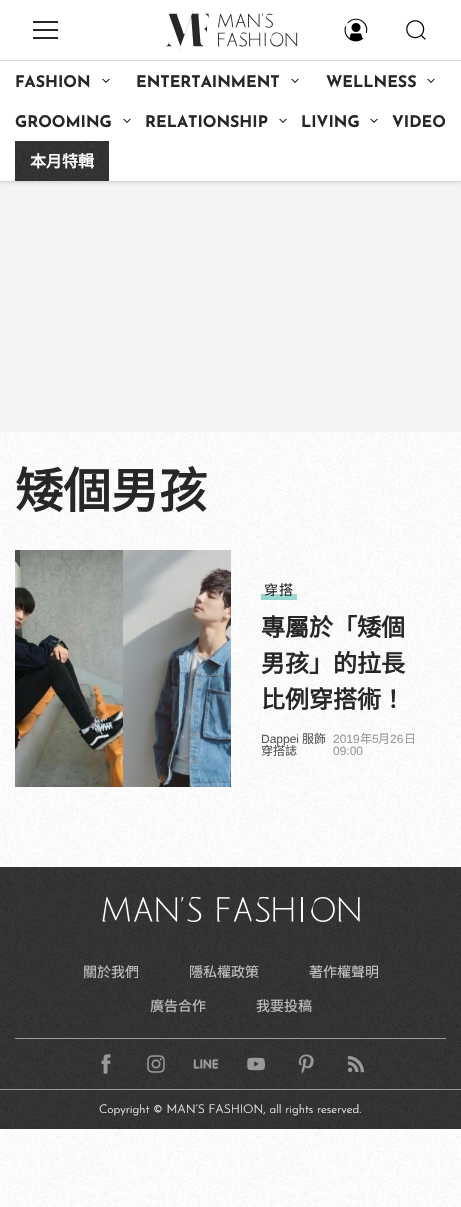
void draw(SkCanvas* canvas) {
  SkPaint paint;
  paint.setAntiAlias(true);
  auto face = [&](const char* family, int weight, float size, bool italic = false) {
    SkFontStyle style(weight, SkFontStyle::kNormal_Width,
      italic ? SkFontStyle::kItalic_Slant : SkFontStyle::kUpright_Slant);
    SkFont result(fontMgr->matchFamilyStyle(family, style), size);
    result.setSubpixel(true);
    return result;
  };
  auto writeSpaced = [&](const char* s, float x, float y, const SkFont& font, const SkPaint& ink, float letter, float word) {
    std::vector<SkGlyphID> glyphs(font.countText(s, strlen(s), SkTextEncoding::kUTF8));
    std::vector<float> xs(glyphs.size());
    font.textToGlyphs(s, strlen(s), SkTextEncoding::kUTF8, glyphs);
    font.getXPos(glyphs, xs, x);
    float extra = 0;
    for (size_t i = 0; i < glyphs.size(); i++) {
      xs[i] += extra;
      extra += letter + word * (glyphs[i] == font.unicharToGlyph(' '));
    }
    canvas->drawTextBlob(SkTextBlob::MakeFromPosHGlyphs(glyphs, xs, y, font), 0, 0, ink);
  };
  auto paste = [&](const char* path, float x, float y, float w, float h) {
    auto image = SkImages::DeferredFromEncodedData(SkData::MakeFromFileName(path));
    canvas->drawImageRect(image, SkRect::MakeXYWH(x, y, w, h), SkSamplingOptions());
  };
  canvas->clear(0xffffffff);
  paste("img/1.png", 0, 432, 461, 775);
  paint.setColor(0xfff3f3f3);
  canvas->drawRect(SkRect::MakeXYWH(0, 182, 461, 250), paint);
  paint.setColor(0x26000000);
  paint.setMaskFilter(SkMaskFilter::MakeBlur(kNormal_SkBlurStyle, 2.5f));
  canvas->drawRect(SkRect::MakeXYWH(0, 0, 461, 182), paint);
  paint.setMaskFilter(nullptr);
  {
    const struct { float x, y, w, h; SkColor color; } items[] = {
      {0, 0, 461, 181, 0xffffffff},
      {33, 21, 25, 2, 0xff272727},
      {33, 29, 25, 2, 0xff272727},
      {33, 37, 25, 2, 0xff272727},
    };
    for (auto [x, y, w, h, color] : items) {
      paint.setColor(color);
      canvas->drawRect(SkRect::MakeXYWH(x, y, w, h), paint);
    }
  }
  paste("img/2.png", 165, 10, 133, 40);
  paste("img/3.png", 344, 18, 24, 24);
  paste("img/4.png", 406, 20, 20, 20);
  paint.setColor(0xffd8d8d8);
  canvas->drawRect(SkRect::MakeXYWH(0, 60, 461, 1), paint);
  canvas->drawRect(SkRect::MakeXYWH(0, 181, 461, 1), paint);
  paste("img/5.png", 102, 79, 8, 4);
  paste("img/5.png", 291, 79, 8, 4);
  paste("img/5.png", 427, 79, 8, 4);
  paste("img/5.png", 123, 119, 8, 4);
  paste("img/5.png", 279, 119, 8, 4);
  paste("img/5.png", 370, 119, 8, 4);
  paint.setColor(0xff272727);
  canvas->drawRect(SkRect::MakeXYWH(15, 141, 94, 40), paint);
  paste("img/6.png", 15, 141, 94, 40);
  paste("img/7.png", 15, 550, 216, 237);
  paint.setColor(0xb371c6bc);
  canvas->drawRect(SkRect::MakeXYWH(261, 594, 36, 6), paint);
  paint.setColor(0xff272727);
  canvas->drawRect(SkRect::MakeXYWH(0, 867, 461, 262), paint);
  paste("img/8.png", 0, 867, 461, 262);
  paste("img/9.png", 102, 897, 258, 25);
  paint.setColor(0xff999999);
  canvas->drawRect(SkRect::MakeXYWH(15, 1038, 431, 1), paint);
  paste("img/10.png", 101, 1054, 10, 20);
  paste("img/11.png", 147, 1055, 18, 18);
  paste("img/12.png", 193, 1059, 26, 10);
  paste("img/13.png", 247, 1057, 18, 14);
  paste("img/14.png", 298, 1054, 16, 20);
  paste("img/15.png", 347, 1055, 18, 18);
  canvas->drawRect(SkRect::MakeXYWH(0, 1089, 461, 1), paint);
  auto f0 = face("Josefin Sans", 700, 16);
  paint.setColor(0xff272727);
  {
    const struct { const char* s; float x, y; } items[] = {
      {"FASHION", 15, 87},
      {"ENTERTAINMENT", 136, 87},
      {"WELLNESS", 326, 87},
      {"GROOMING", 15, 127},
      {"RELATIONSHIP", 145, 127},
      {"LIVING", 301, 127},
      {"VIDEO", 392, 127},
    };
    for (auto [s, x, y] : items) {
      canvas->drawString(s, x, y, f0, paint);
    }
  }
  auto f1 = face("Noto Sans CJK TC", 700, 16);
  paint.setColor(0xffffffff);
  canvas->drawString("本月特輯", 30, 167, f1, paint);
  auto f2 = face("Noto Sans CJK TC", 700, 48);
  paint.setColor(0xff272727);
  canvas->drawString("矮個男孩", 15, 508, f2, paint);
  auto f3 = face("Noto Sans CJK TC", 400, 14);
  writeSpaced("穿搭", 264, 595, f3, paint, 1, 0);
  auto f4 = face("Noto Sans CJK TC", 700, 24);
  {
    const struct { const char* s; float x, y; } items[] = {
      {"專屬於「矮個", 261, 636},
      {"男孩」的拉長", 261, 672},
      {"比例穿搭術！", 261, 708},
    };
    for (auto [s, x, y] : items) {
      canvas->drawString(s, x, y, f4, paint);
    }
  }
  auto f5 = face("Liberation Sans", 400, 12);
  paint.setColor(0xff555555);
  canvas->drawString("Dappei", 261, 743, f5, paint);
  auto f6 = face("Noto Sans CJK TC", 400, 12);
  canvas->drawString("服飾", 302, 743, f6, paint);
  canvas->drawString("穿搭誌", 261, 755, f6, paint);
  paint.setColor(0xff999999);
  canvas->drawString("2019", 333, 743, f5, paint);
  canvas->drawString("年", 360, 743, f6, paint);
  canvas->drawString("5", 372, 743, f5, paint);
  canvas->drawString("月", 378, 743, f6, paint);
  canvas->drawString("26", 390, 743, f5, paint);
  canvas->drawString("日", 404, 743, f6, paint);
  canvas->drawString("09:00", 333, 755, f5, paint);
  paint.setColor(0xffc2c2c2);
  {
    const struct { const char* s; float x, y; } items[] = {
      {"關於我們", 83, 977},
      {"隱私權政策", 189, 977},
      {"著作權聲明", 309, 977},
      {"廣告合作", 150, 1011},
      {"我要投稿", 256, 1011},
    };
    for (auto [s, x, y] : items) {
      canvas->drawString(s, x, y, f3, paint);
    }
  }
  auto f7 = face("Josefin Sans", 300, 12);
  paint.setColor(0xffffffff);
  canvas->drawString("Copyright © MAN’S FASHION, all rights reserved.", 99, 1113, f7, paint);
}
